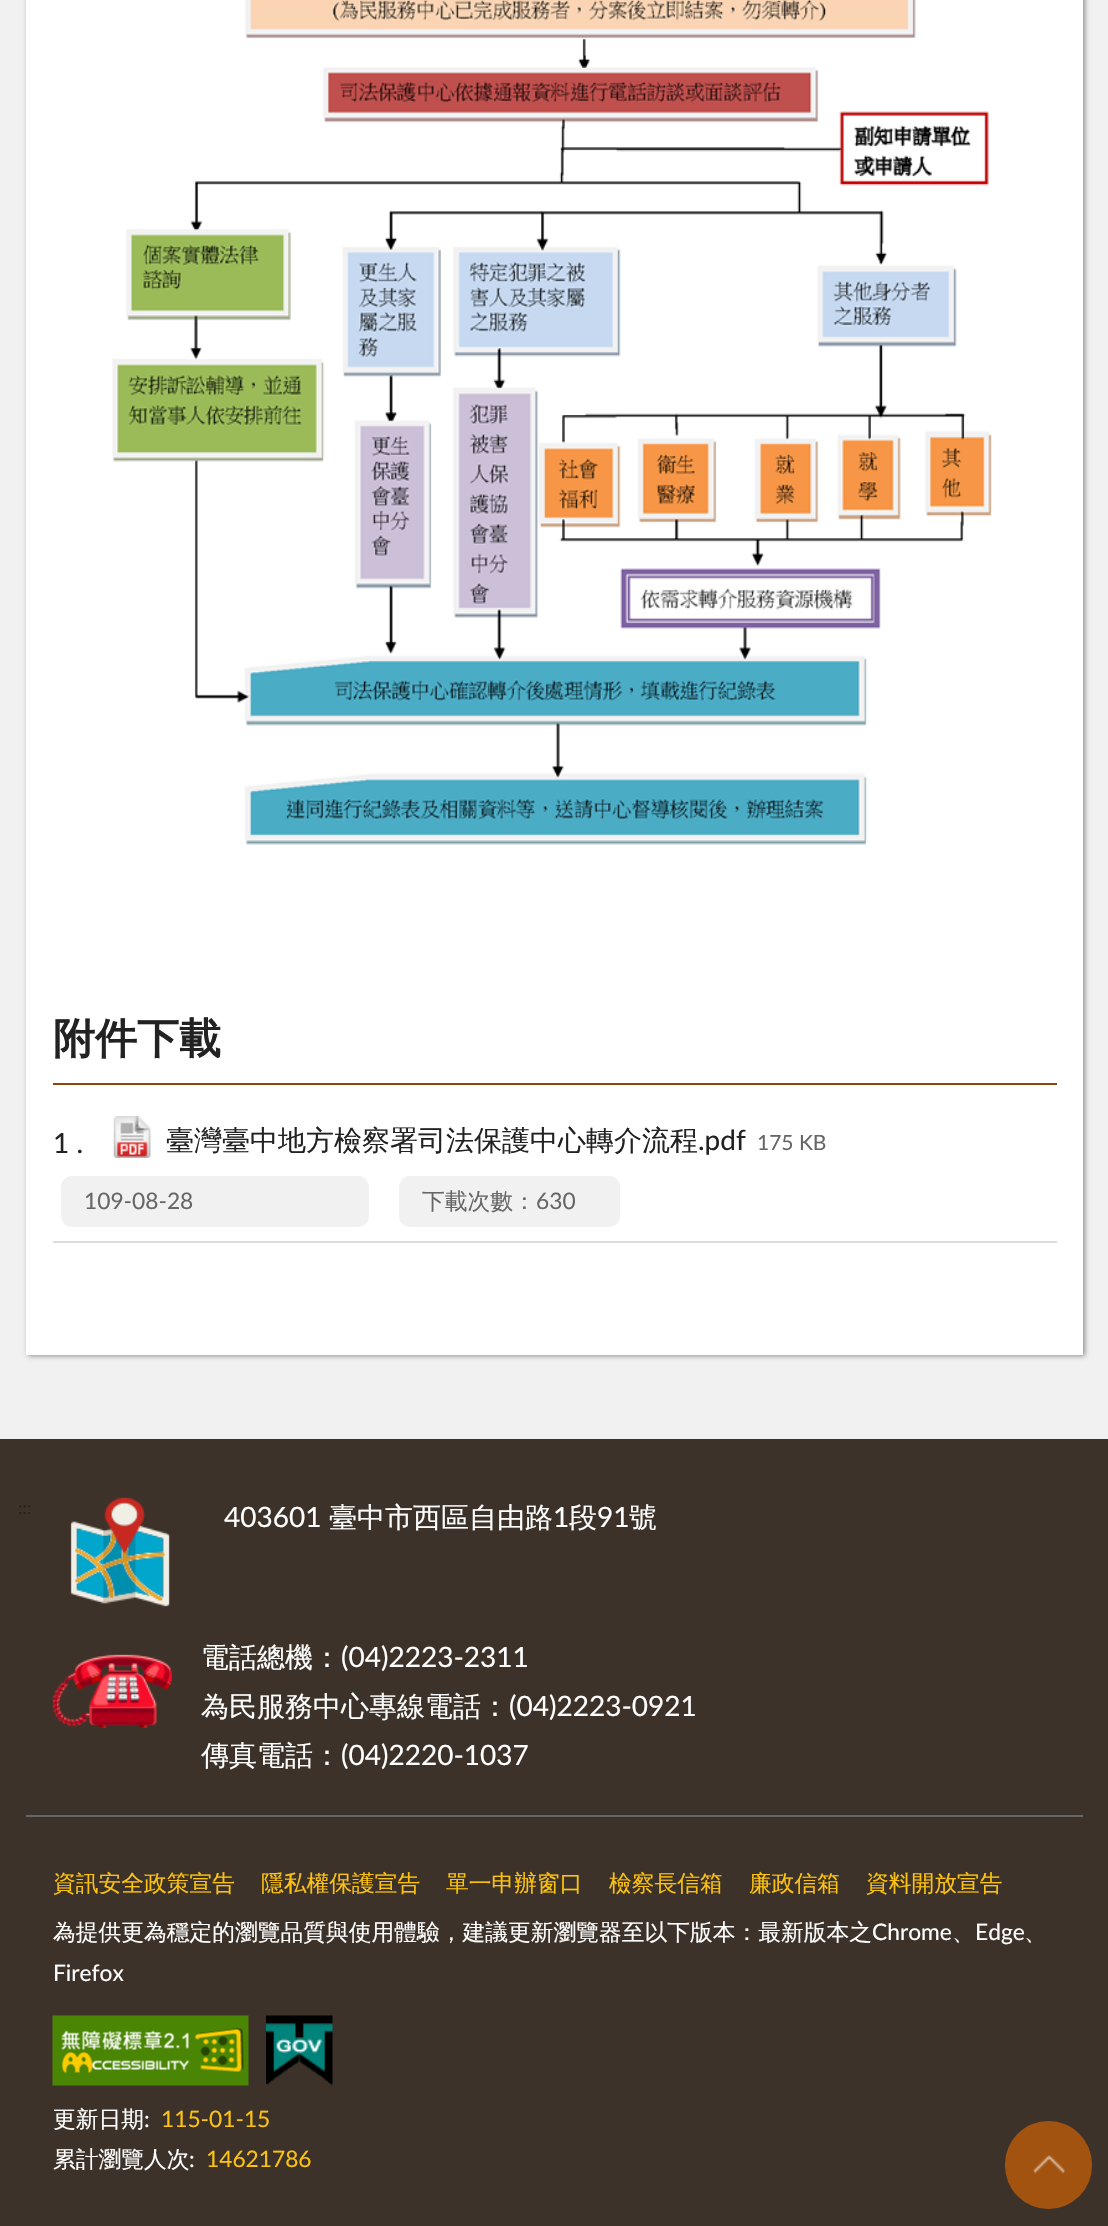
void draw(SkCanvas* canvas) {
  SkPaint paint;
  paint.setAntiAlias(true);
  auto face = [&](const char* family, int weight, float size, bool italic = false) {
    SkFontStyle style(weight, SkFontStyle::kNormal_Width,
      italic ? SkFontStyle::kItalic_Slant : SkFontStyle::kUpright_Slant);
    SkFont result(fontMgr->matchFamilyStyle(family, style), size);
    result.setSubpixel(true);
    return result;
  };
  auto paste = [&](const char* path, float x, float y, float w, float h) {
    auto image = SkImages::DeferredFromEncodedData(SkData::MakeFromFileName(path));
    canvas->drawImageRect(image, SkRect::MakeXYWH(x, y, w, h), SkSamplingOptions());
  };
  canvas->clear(0xff3d3229);
  paint.setColor(0xfff1f1f1);
  canvas->drawRect(SkRect::MakeXYWH(0, 0, 1108, 1439), paint);
  paint.setColor(0x66000000);
  paint.setMaskFilter(SkMaskFilter::MakeBlur(kNormal_SkBlurStyle, 2.5f));
  canvas->drawRect(SkRect::MakeXYWH(28, -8, 1057, 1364), paint);
  paint.setMaskFilter(nullptr);
  paint.setColor(0xffffffff);
  canvas->drawRect(SkRect::MakeXYWH(26, 0, 1057, 1355), paint);
  paste("img/1.png", 112, 0, 880, 845);
  paint.setColor(0xff8d450c);
  canvas->drawRect(SkRect::MakeXYWH(53, 1083, 1004, 2), paint);
  paint.setColor(0xffdddddd);
  canvas->drawRect(SkRect::MakeXYWH(53, 1241, 1004, 2), paint);
  paste("img/2.png", 113, 1116, 38, 42);
  paint.setColor(0xfff1f1f1);
  canvas->drawRoundRect(SkRect::MakeXYWH(61, 1176, 308, 51), 11, 11, paint);
  canvas->drawRoundRect(SkRect::MakeXYWH(399, 1176, 221, 51), 11, 11, paint);
  paste("img/3.png", 70, 1497, 100, 110);
  paste("img/4.png", 52, 1654, 121, 74);
  paint.setColor(0xff666666);
  canvas->drawRect(SkRect::MakeXYWH(26, 1815, 1057, 2), paint);
  paste("img/5.png", 52, 2015, 197, 71);
  paste("img/6.png", 266, 2015, 67, 71);
  paint.setColor(0xffa35310);
  canvas->drawRoundRect(SkRect::MakeXYWH(1005, 2121, 87, 88), 43.5f, 43.5f, paint);
  paste("img/7.png", 1033, 2155, 32, 19);
  auto f0 = face("WenQuanYi Zen Hei", 700, 42);
  paint.setColor(0xff222222);
  canvas->drawString("附件下載", 53, 1053, f0, paint);
  auto f1 = face("Lato", 400, 28);
  canvas->drawString("1 .", 53, 1153, f1, paint);
  auto f2 = face("WenQuanYi Zen Hei", 500, 28);
  canvas->drawString("臺灣臺中地方檢察署司法保護中心轉介流程", 166, 1150, f2, paint);
  canvas->drawString(".pdf", 698, 1150, f1, paint);
  auto f3 = face("Lato", 400, 21);
  paint.setColor(0xff666666);
  canvas->drawString("175 KB", 757, 1150, f3, paint);
  auto f4 = face("Lato", 400, 22.75f);
  canvas->drawString("109-08-28", 84, 1209, f4, paint);
  auto f5 = face("WenQuanYi Zen Hei", 500, 22.75f);
  canvas->drawString("下載次數：", 422, 1209, f5, paint);
  canvas->drawString("630", 536, 1209, f4, paint);
  auto f6 = face("Lato", 400, 18);
  paint.setColor(0xff222222);
  canvas->drawString(":::", 18, 1514, f6, paint);
  paint.setColor(0xffffffff);
  canvas->drawString("403601", 224, 1527, f1, paint);
  canvas->drawString("臺中市西區自由路", 329, 1527, f2, paint);
  canvas->drawString("1", 553, 1527, f1, paint);
  canvas->drawString("段", 569, 1527, f2, paint);
  canvas->drawString("91", 597, 1527, f1, paint);
  canvas->drawString("號", 629, 1527, f2, paint);
  canvas->drawString("電話總機：", 201, 1667, f2, paint);
  canvas->drawString("(04)2223-2311", 341, 1667, f1, paint);
  canvas->drawString("為民服務中心專線電話：", 201, 1716, f2, paint);
  canvas->drawString("(04)2223-0921", 509, 1716, f1, paint);
  canvas->drawString("傳真電話：", 201, 1765, f2, paint);
  canvas->drawString("(04)2220-1037", 341, 1765, f1, paint);
  paint.setColor(0xfffcc211);
  {
    const struct { const char* s; float x, y; } items[] = {
      {"資訊安全政策宣告", 53, 1891},
      {"隱私權保護宣告", 261, 1891},
      {"單一申辦窗口", 446, 1891},
      {"檢察長信箱", 609, 1891},
      {"廉政信箱", 749, 1891},
      {"資料開放宣告", 866, 1891},
    };
    for (auto [s, x, y] : items) {
      canvas->drawString(s, x, y, f5, paint);
    }
  }
  paint.setColor(0xffffffff);
  canvas->drawString("為提供更為穩定的瀏覽品質與使用體驗，建議更新瀏覽器至以下版本：最新版本之", 53, 1940, f5, paint);
  canvas->drawString("Chrome", 872, 1940, f4, paint);
  canvas->drawString("、", 952, 1940, f5, paint);
  canvas->drawString("Edge", 975, 1940, f4, paint);
  canvas->drawString("、", 1024, 1940, f5, paint);
  canvas->drawString("Firefox", 53, 1981, f4, paint);
  canvas->drawString("更新日期", 53, 2127, f5, paint);
  canvas->drawString(":", 144, 2127, f4, paint);
  paint.setColor(0xfffcc211);
  canvas->drawString("115-01-15", 161, 2127, f4, paint);
  paint.setColor(0xffffffff);
  canvas->drawString("累計瀏覽人次", 53, 2167, f5, paint);
  canvas->drawString(":", 189, 2167, f4, paint);
  paint.setColor(0xfffcc211);
  canvas->drawString("14621786", 206, 2167, f4, paint);
}
